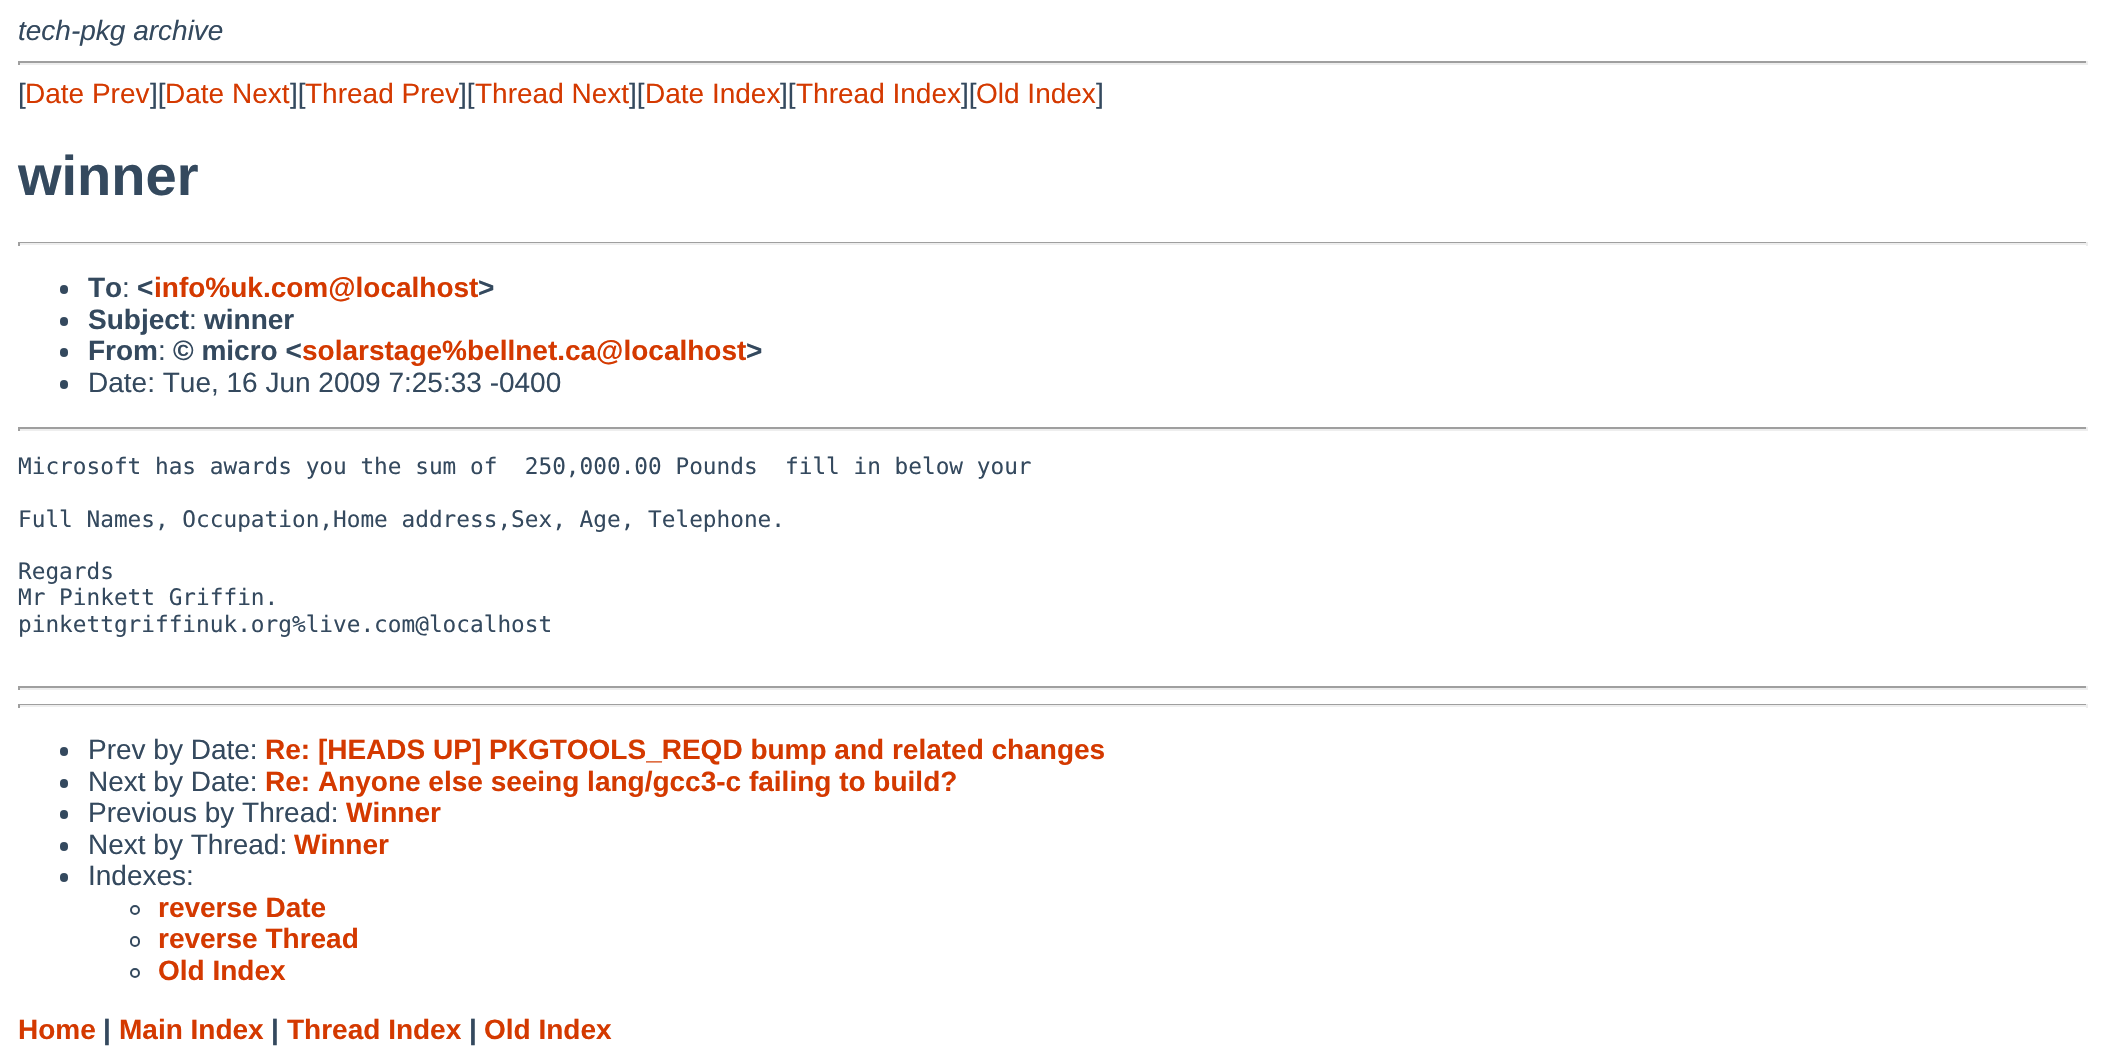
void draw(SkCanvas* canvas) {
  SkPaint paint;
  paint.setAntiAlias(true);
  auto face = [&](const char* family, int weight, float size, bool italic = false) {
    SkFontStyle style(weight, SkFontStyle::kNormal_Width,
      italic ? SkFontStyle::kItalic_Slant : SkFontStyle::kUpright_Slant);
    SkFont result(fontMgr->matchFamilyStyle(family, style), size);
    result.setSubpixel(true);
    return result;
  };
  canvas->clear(0xffffffff);
  {
    const struct { float x, y, w, h; SkColor color; } items[] = {
      {18, 61, 2070, 2, 0xff9f9f9f},
      {2086, 61, 2, 4, 0xffeeeeee},
      {18, 63, 2070, 2, 0xffeeeeee},
      {18, 61, 2, 4, 0xff9f9f9f},
      {18, 242, 2070, 1, 0xff9f9f9f},
      {2086, 242, 2, 4, 0xffeeeeee},
      {18, 243, 2070, 2, 0xffeeeeee},
      {18, 242, 2, 4, 0xff9f9f9f},
    };
    for (auto [x, y, w, h, color] : items) {
      paint.setColor(color);
      canvas->drawRect(SkRect::MakeXYWH(x, y, w, h), paint);
    }
  }
  paint.setColor(0xff34495e);
  canvas->drawRoundRect(SkRect::MakeXYWH(60, 285, 8, 9), 4, 4, paint);
  canvas->drawRoundRect(SkRect::MakeXYWH(60, 317, 8, 9), 4, 4, paint);
  canvas->drawRoundRect(SkRect::MakeXYWH(60, 348, 8, 9), 4, 4, paint);
  canvas->drawRoundRect(SkRect::MakeXYWH(60, 380, 8, 9), 4, 4, paint);
  {
    const struct { float x, y, w, h; SkColor color; } items[] = {
      {18, 427, 2070, 2, 0xff9f9f9f},
      {2086, 427, 2, 4, 0xffeeeeee},
      {18, 429, 2070, 2, 0xffeeeeee},
      {18, 427, 2, 4, 0xff9f9f9f},
      {18, 686, 2070, 2, 0xff9f9f9f},
      {2086, 686, 2, 4, 0xffeeeeee},
      {18, 688, 2070, 2, 0xffeeeeee},
      {18, 686, 2, 4, 0xff9f9f9f},
      {18, 704, 2070, 1, 0xff9f9f9f},
      {2086, 704, 2, 4, 0xffeeeeee},
      {18, 705, 2070, 2, 0xffeeeeee},
      {18, 704, 2, 4, 0xff9f9f9f},
    };
    for (auto [x, y, w, h, color] : items) {
      paint.setColor(color);
      canvas->drawRect(SkRect::MakeXYWH(x, y, w, h), paint);
    }
  }
  paint.setColor(0xff34495e);
  canvas->drawRoundRect(SkRect::MakeXYWH(60, 747, 8, 9), 4, 4, paint);
  canvas->drawRoundRect(SkRect::MakeXYWH(60, 779, 8, 9), 4, 4, paint);
  canvas->drawRoundRect(SkRect::MakeXYWH(60, 810, 8, 9), 4, 4, paint);
  canvas->drawRoundRect(SkRect::MakeXYWH(60, 842, 8, 9), 4, 4, paint);
  canvas->drawRoundRect(SkRect::MakeXYWH(60, 873, 8, 9), 4, 4, paint);
  paint.setStroke(true);
  paint.setStrokeWidth(2);
  canvas->drawCircle(135, 910, 4, paint);
  canvas->drawRoundRect(SkRect::MakeXYWH(131, 937, 8, 9), 4, 4, paint);
  canvas->drawCircle(135, 973, 4, paint);
  auto f0 = face("Liberation Sans", 400, 28, true);
  paint.setStroke(false);
  canvas->drawString("tech-pkg archive", 18, 40, f0, paint);
  auto f1 = face("Liberation Sans", 400, 28);
  canvas->drawString("[", 18, 103, f1, paint);
  paint.setColor(0xffd43900);
  canvas->drawString("Date Prev", 25, 103, f1, paint);
  paint.setColor(0xff34495e);
  canvas->drawString("][", 150, 103, f1, paint);
  paint.setColor(0xffd43900);
  canvas->drawString("Date Next", 165, 103, f1, paint);
  paint.setColor(0xff34495e);
  canvas->drawString("][", 290, 103, f1, paint);
  paint.setColor(0xffd43900);
  canvas->drawString("Thread Prev", 305, 103, f1, paint);
  paint.setColor(0xff34495e);
  canvas->drawString("][", 459, 103, f1, paint);
  paint.setColor(0xffd43900);
  canvas->drawString("Thread Next", 475, 103, f1, paint);
  paint.setColor(0xff34495e);
  canvas->drawString("][", 629, 103, f1, paint);
  paint.setColor(0xffd43900);
  canvas->drawString("Date Index", 645, 103, f1, paint);
  paint.setColor(0xff34495e);
  canvas->drawString("][", 780, 103, f1, paint);
  paint.setColor(0xffd43900);
  canvas->drawString("Thread Index", 796, 103, f1, paint);
  paint.setColor(0xff34495e);
  canvas->drawString("][", 961, 103, f1, paint);
  paint.setColor(0xffd43900);
  canvas->drawString("Old Index", 976, 103, f1, paint);
  paint.setColor(0xff34495e);
  canvas->drawString("]", 1096, 103, f1, paint);
  auto f2 = face("Liberation Sans", 700, 56);
  canvas->drawString("winner", 18, 195, f2, paint);
  auto f3 = face("Liberation Sans", 700, 28);
  canvas->drawString("To", 88, 297, f3, paint);
  canvas->drawString(":", 122, 297, f1, paint);
  canvas->drawString("<", 137, 297, f3, paint);
  paint.setColor(0xffd43900);
  canvas->drawString("info%uk.com@localhost", 154, 297, f3, paint);
  paint.setColor(0xff34495e);
  canvas->drawString(">", 478, 297, f3, paint);
  canvas->drawString("Subject", 88, 329, f3, paint);
  canvas->drawString(":", 189, 329, f1, paint);
  canvas->drawString("winner", 204, 329, f3, paint);
  canvas->drawString("From", 88, 360, f3, paint);
  canvas->drawString(":", 158, 360, f1, paint);
  canvas->drawString("© micro <", 173, 360, f3, paint);
  paint.setColor(0xffd43900);
  canvas->drawString("solarstage%bellnet.ca@localhost", 302, 360, f3, paint);
  paint.setColor(0xff34495e);
  canvas->drawString(">", 746, 360, f3, paint);
  canvas->drawString("Date: Tue, 16 Jun 2009 7:25:33 -0400", 88, 392, f1, paint);
  auto f4 = face("DejaVu Sans Mono", 400, 22.75f);
  {
    const struct { const char* s; float x, y; } items[] = {
      {"Microsoft has awards you the sum of  250,000.00 Pounds  fill in below your", 18, 474},
      {"Full Names, Occupation,Home address,Sex, Age, Telephone.", 18, 527},
      {"Regards", 18, 579},
      {"Mr Pinkett Griffin.", 18, 605},
      {"pinkettgriffinuk.org%live.com@localhost", 18, 632},
    };
    for (auto [s, x, y] : items) {
      canvas->drawString(s, x, y, f4, paint);
    }
  }
  canvas->drawString("Prev by Date:", 88, 759, f1, paint);
  paint.setColor(0xffd43900);
  canvas->drawString("Re: [HEADS UP] PKGTOOLS_REQD bump and related changes", 265, 759, f3, paint);
  paint.setColor(0xff34495e);
  canvas->drawString("Next by Date:", 88, 791, f1, paint);
  paint.setColor(0xffd43900);
  canvas->drawString("Re: Anyone else seeing lang/gcc3-c failing to build?", 265, 791, f3, paint);
  paint.setColor(0xff34495e);
  canvas->drawString("Previous by Thread:", 88, 822, f1, paint);
  paint.setColor(0xffd43900);
  canvas->drawString("Winner", 346, 822, f3, paint);
  paint.setColor(0xff34495e);
  canvas->drawString("Next by Thread:", 88, 854, f1, paint);
  paint.setColor(0xffd43900);
  canvas->drawString("Winner", 294, 854, f3, paint);
  paint.setColor(0xff34495e);
  canvas->drawString("Indexes:", 88, 885, f1, paint);
  paint.setColor(0xffd43900);
  {
    const struct { const char* s; float x, y; } items[] = {
      {"reverse Date", 158, 917},
      {"reverse Thread", 158, 948},
      {"Old Index", 158, 980},
      {"Home", 18, 1039},
    };
    for (auto [s, x, y] : items) {
      canvas->drawString(s, x, y, f3, paint);
    }
  }
  paint.setColor(0xff34495e);
  canvas->drawString("|", 103, 1039, f3, paint);
  paint.setColor(0xffd43900);
  canvas->drawString("Main Index", 119, 1039, f3, paint);
  paint.setColor(0xff34495e);
  canvas->drawString("|", 271, 1039, f3, paint);
  paint.setColor(0xffd43900);
  canvas->drawString("Thread Index", 287, 1039, f3, paint);
  paint.setColor(0xff34495e);
  canvas->drawString("|", 469, 1039, f3, paint);
  paint.setColor(0xffd43900);
  canvas->drawString("Old Index", 484, 1039, f3, paint);
}
